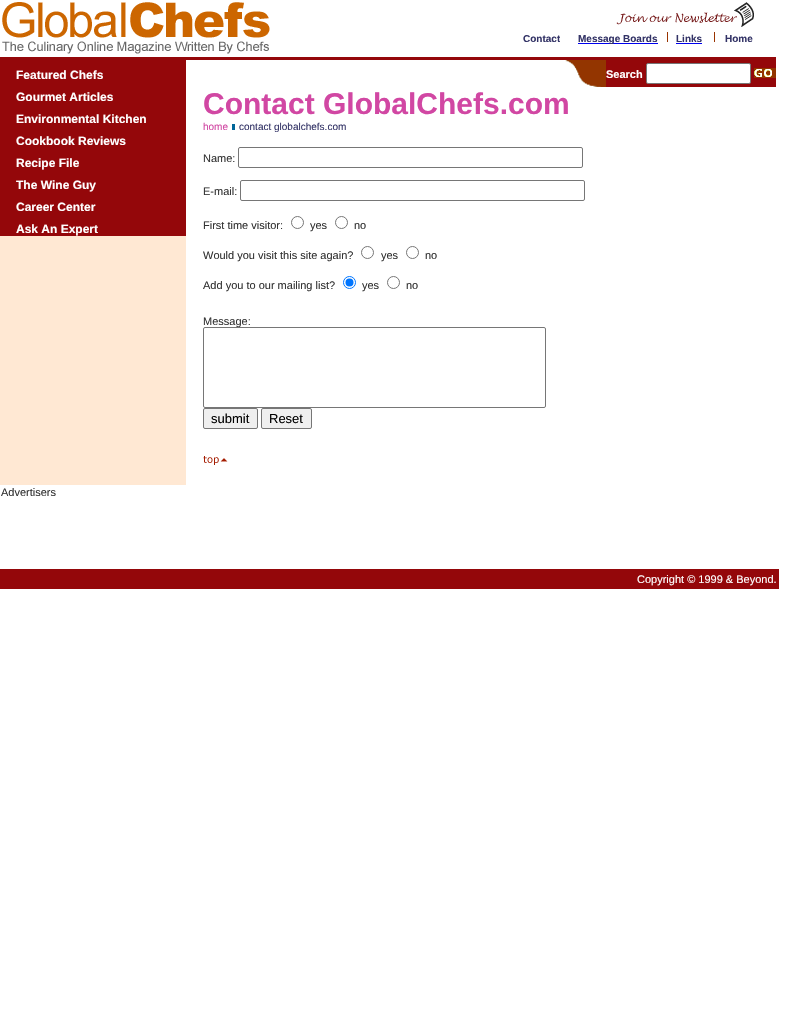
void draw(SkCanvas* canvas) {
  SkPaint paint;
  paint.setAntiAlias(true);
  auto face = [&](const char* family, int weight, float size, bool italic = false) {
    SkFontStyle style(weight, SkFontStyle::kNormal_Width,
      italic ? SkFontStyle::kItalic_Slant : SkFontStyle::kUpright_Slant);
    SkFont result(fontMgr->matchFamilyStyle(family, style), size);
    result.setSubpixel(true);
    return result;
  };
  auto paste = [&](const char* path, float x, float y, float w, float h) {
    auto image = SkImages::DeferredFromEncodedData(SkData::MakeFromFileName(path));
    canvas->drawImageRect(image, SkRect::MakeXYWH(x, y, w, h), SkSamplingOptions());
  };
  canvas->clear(0xffffffff);
  paste("img/1.png", 2, 2, 268, 52);
  paste("img/2.png", 616, 2, 138, 25);
  {
    const struct { float x, y, w, h; SkColor color; } items[] = {
      {578, 43, 80, 1, 0xff0000ee},
      {667, 32, 1, 10, 0xff993300},
      {676, 43, 26, 1, 0xff0000ee},
      {714, 32, 1, 10, 0xff993300},
      {0, 57, 776, 3, 0xff94070a},
      {0, 236, 186, 249, 0xffffe8d3},
      {0, 60, 186, 176, 0xff94070a},
    };
    for (auto [x, y, w, h, color] : items) {
      paint.setColor(color);
      canvas->drawRect(SkRect::MakeXYWH(x, y, w, h), paint);
    }
  }
  paste("img/3.png", 565, 60, 41, 27);
  canvas->drawRect(SkRect::MakeXYWH(606, 60, 170, 27), paint);
  paint.setColor(0xffffffff);
  canvas->drawRoundRect(SkRect::MakeXYWH(646.5f, 63.5f, 104, 20), 1.5f, 1.5f, paint);
  paint.setStroke(true);
  paint.setStrokeWidth(1);
  paint.setColor(0xff767676);
  canvas->drawRoundRect(SkRect::MakeXYWH(646.5f, 63.5f, 104, 20), 1.5f, 1.5f, paint);
  paste("img/4.png", 754, 68, 22, 10);
  paint.setStroke(false);
  paint.setColor(0xff006699);
  canvas->drawRect(SkRect::MakeXYWH(232, 124, 3, 6), paint);
  paint.setStroke(true);
  paint.setColor(0xff767676);
  canvas->drawRoundRect(SkRect::MakeXYWH(238.5f, 147.5f, 344, 20), 1.5f, 1.5f, paint);
  canvas->drawRoundRect(SkRect::MakeXYWH(240.5f, 180.5f, 344, 20), 1.5f, 1.5f, paint);
  canvas->drawCircle(297.5f, 222.5f, 6, paint);
  canvas->drawCircle(341.5f, 222.5f, 6, paint);
  canvas->drawCircle(367.5f, 252.5f, 6, paint);
  canvas->drawCircle(412.5f, 252.5f, 6, paint);
  paint.setColor(0xff0075ff);
  canvas->drawCircle(349.5f, 282.5f, 6, paint);
  paint.setStroke(false);
  canvas->drawCircle(349.5f, 282.5f, 4, paint);
  paint.setStroke(true);
  paint.setColor(0xff767676);
  canvas->drawCircle(393.5f, 282.5f, 6, paint);
  paint.setStroke(false);
  paint.setColor(0xffefefef);
  canvas->drawRoundRect(SkRect::MakeXYWH(203.5f, 408.5f, 54, 20), 1.5f, 1.5f, paint);
  paint.setStroke(true);
  paint.setColor(0xff767676);
  canvas->drawRoundRect(SkRect::MakeXYWH(203.5f, 408.5f, 54, 20), 1.5f, 1.5f, paint);
  paint.setStroke(false);
  paint.setColor(0xffefefef);
  canvas->drawRoundRect(SkRect::MakeXYWH(261.5f, 408.5f, 50, 20), 1.5f, 1.5f, paint);
  paint.setStroke(true);
  paint.setColor(0xff767676);
  canvas->drawRoundRect(SkRect::MakeXYWH(261.5f, 408.5f, 50, 20), 1.5f, 1.5f, paint);
  paste("img/5.png", 203, 456, 25, 9);
  paint.setStroke(false);
  paint.setColor(0xff94070a);
  canvas->drawRect(SkRect::MakeXYWH(0, 569, 779, 20), paint);
  auto f0 = face("Liberation Sans", 700, 10);
  paint.setColor(0xff333366);
  {
    const struct { const char* s; float x, y; } items[] = {
      {"Contact", 523, 42},
      {"Message Boards", 578, 42},
      {"Links", 676, 42},
      {"Home", 725, 42},
    };
    for (auto [s, x, y] : items) {
      canvas->drawString(s, x, y, f0, paint);
    }
  }
  paint.setColor(0xffffffff);
  canvas->drawRect(SkRect::MakeXYWH(560, 36, 1, 6), paint);
  auto f1 = face("Liberation Sans", 700, 12);
  {
    const struct { const char* s; float x, y; } items[] = {
      {"Featured Chefs", 16, 79},
      {"Gourmet Articles", 16, 101},
      {"Environmental Kitchen", 16, 123},
      {"Cookbook Reviews", 16, 145},
      {"Recipe File", 16, 167},
      {"The Wine Guy", 16, 189},
      {"Career Center", 16, 211},
      {"Ask An Expert", 16, 233},
    };
    for (auto [s, x, y] : items) {
      canvas->drawString(s, x, y, f1, paint);
    }
  }
  auto f2 = face("Liberation Sans", 700, 11);
  canvas->drawString("Search", 606, 78, f2, paint);
  auto f3 = face("Liberation Sans", 700, 30);
  paint.setColor(0xffd147a3);
  canvas->drawString("Contact GlobalChefs.com", 203, 114, f3, paint);
  auto f4 = face("Liberation Sans", 400, 10);
  canvas->drawString("home", 203, 130, f4, paint);
  paint.setColor(0xff333366);
  canvas->drawString("contact globalchefs.com", 239, 130, f4, paint);
  auto f5 = face("Liberation Sans", 400, 11);
  paint.setColor(0xff333333);
  {
    const struct { const char* s; float x, y; } items[] = {
      {"Name:", 203, 162},
      {"E-mail:", 203, 195},
      {"First time visitor:", 203, 229},
      {"yes", 310, 229},
      {"no", 354, 229},
      {"Would you visit this site again?", 203, 259},
      {"yes", 381, 259},
      {"no", 425, 259},
      {"Add you to our mailing list?", 203, 289},
      {"yes", 362, 289},
      {"no", 406, 289},
      {"Message:", 203, 325},
    };
    for (auto [s, x, y] : items) {
      canvas->drawString(s, x, y, f5, paint);
    }
  }
  paint.setColor(0xffffffff);
  canvas->drawRoundRect(SkRect::MakeXYWH(203.5f, 327.5f, 342, 80), 1.5f, 1.5f, paint);
  paint.setStroke(true);
  paint.setColor(0xff767676);
  canvas->drawRoundRect(SkRect::MakeXYWH(203.5f, 327.5f, 342, 80), 1.5f, 1.5f, paint);
  auto f6 = face("Liberation Sans", 400, 13);
  paint.setStroke(false);
  paint.setColor(0xff000000);
  canvas->drawString("submit", 211, 423, f6, paint);
  canvas->drawString("Reset", 269, 423, f6, paint);
  paint.setColor(0xff333333);
  canvas->drawString("Advertisers", 1, 496, f5, paint);
  paint.setColor(0xffffffff);
  canvas->drawString("Copyright © 1999 & Beyond.", 637, 583, f5, paint);
}
